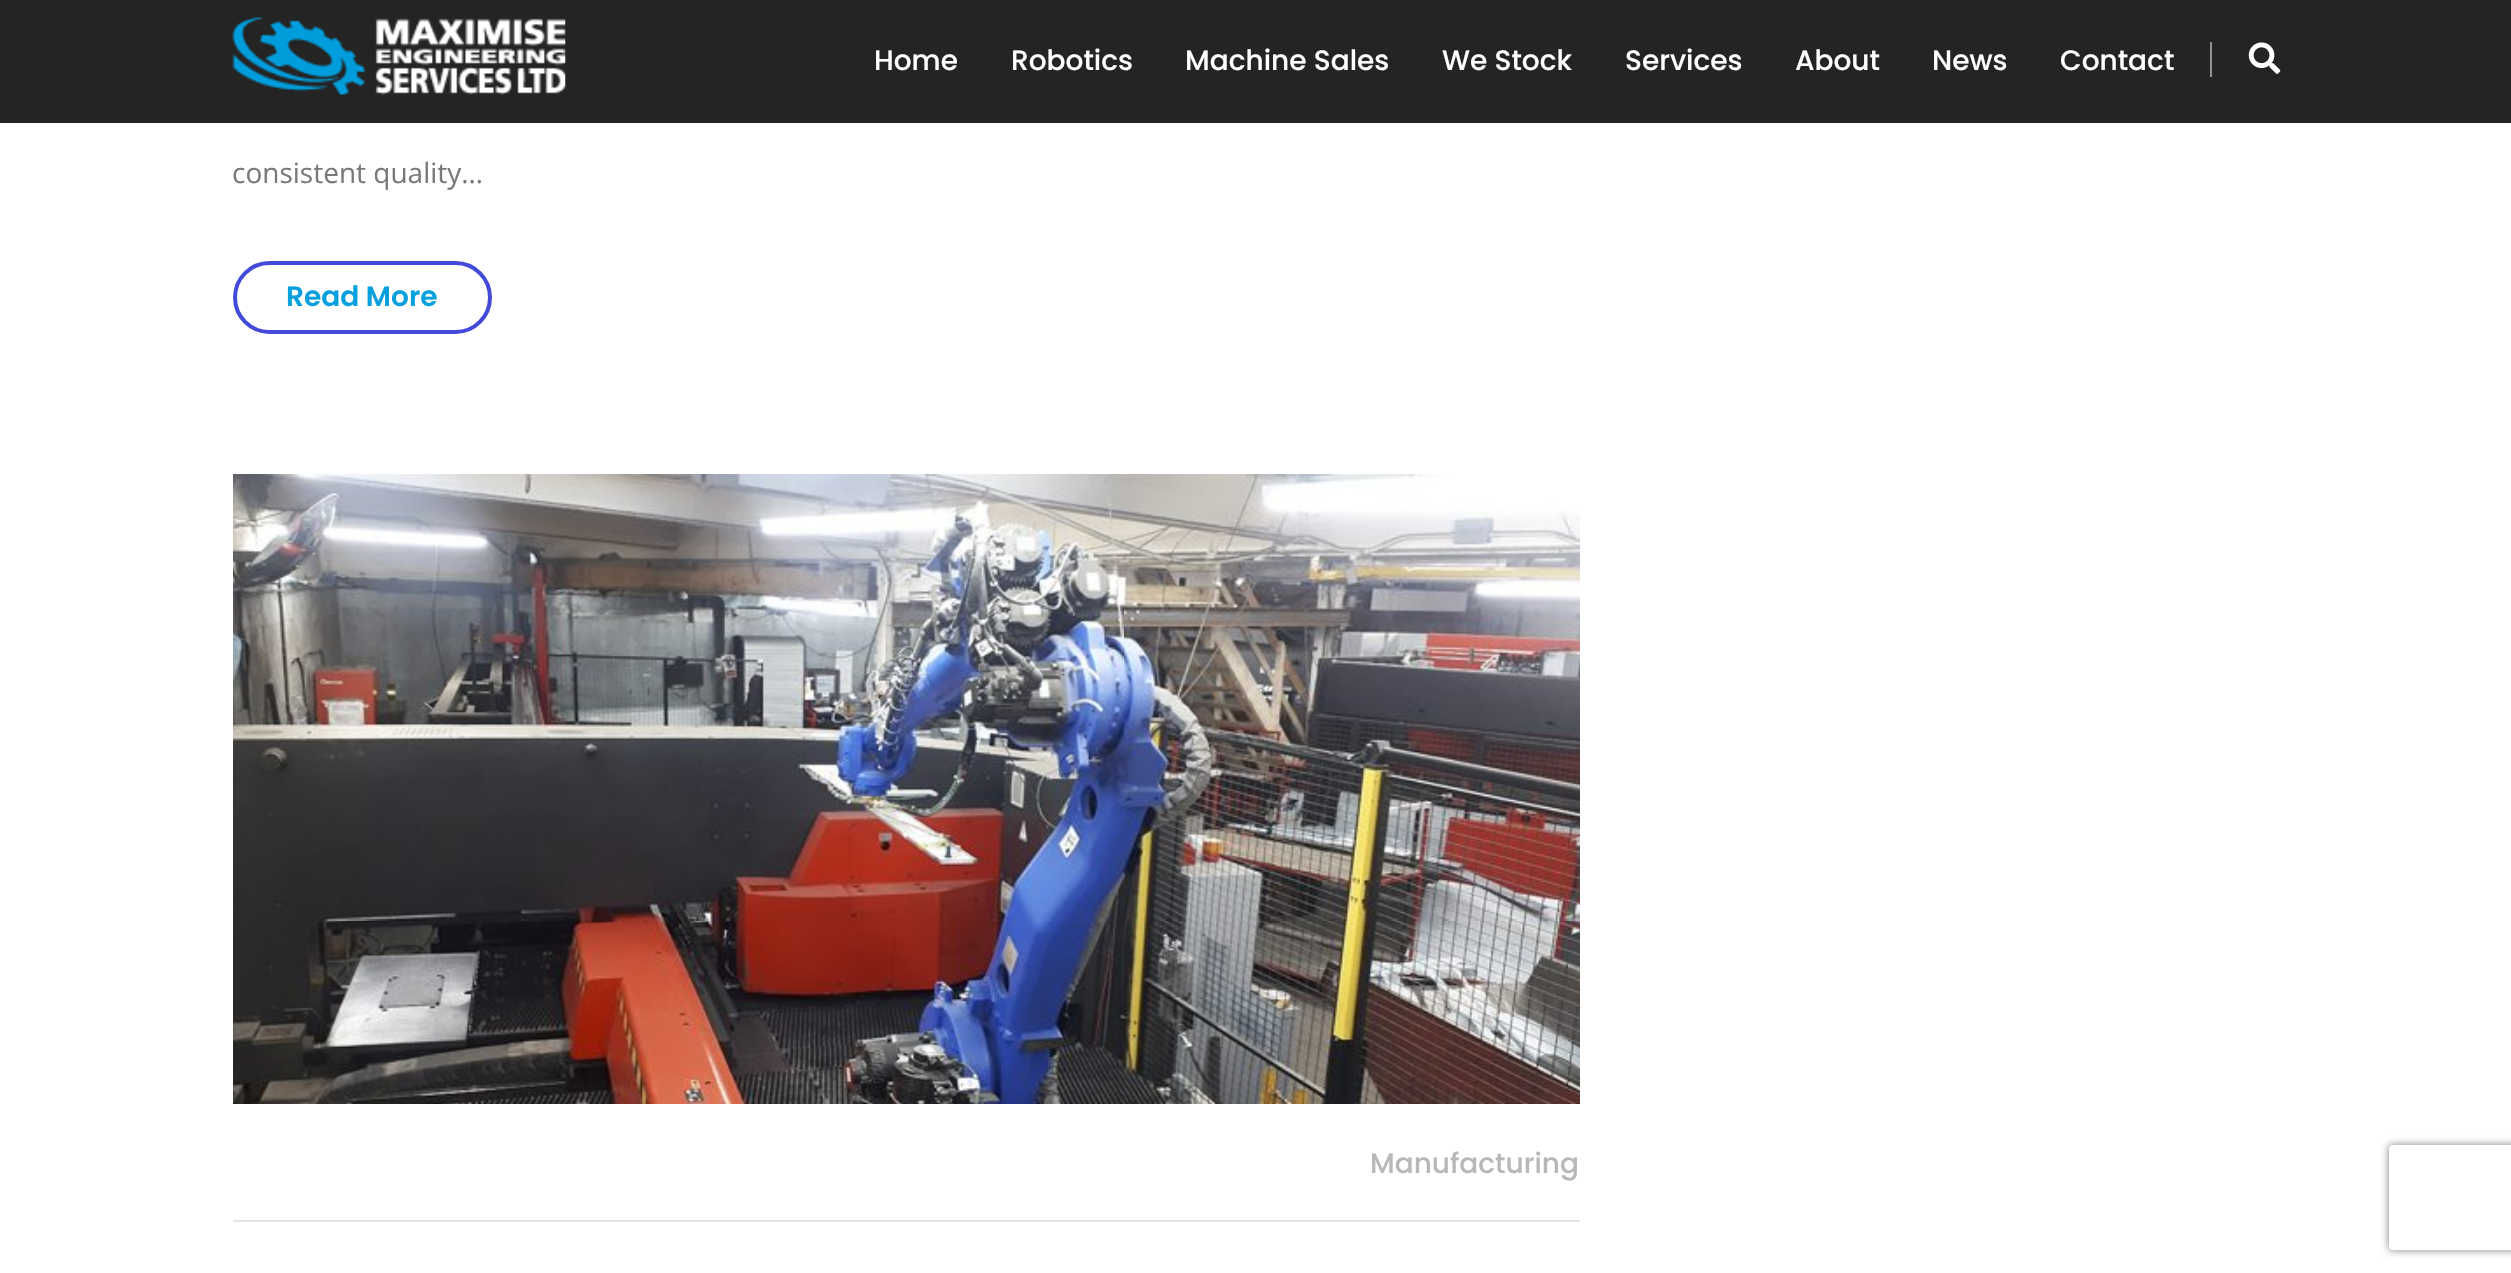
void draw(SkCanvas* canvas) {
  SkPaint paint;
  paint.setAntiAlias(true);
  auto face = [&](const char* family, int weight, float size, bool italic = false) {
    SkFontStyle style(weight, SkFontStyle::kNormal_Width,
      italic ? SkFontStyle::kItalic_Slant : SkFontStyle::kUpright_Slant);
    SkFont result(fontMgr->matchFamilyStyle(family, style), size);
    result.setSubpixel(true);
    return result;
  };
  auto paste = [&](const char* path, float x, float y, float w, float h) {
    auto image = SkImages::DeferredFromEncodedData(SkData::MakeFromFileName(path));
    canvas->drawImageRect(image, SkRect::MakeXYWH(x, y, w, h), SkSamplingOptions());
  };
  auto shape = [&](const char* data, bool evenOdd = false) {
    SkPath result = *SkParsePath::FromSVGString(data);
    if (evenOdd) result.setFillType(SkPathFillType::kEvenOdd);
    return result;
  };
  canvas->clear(0xffffffff);
  paint.setColor(0xff242424);
  canvas->drawRect(SkRect::MakeXYWH(0, 0, 2511, 123), paint);
  paste("img/1.png", 232, 17, 334, 78);
  paint.setColor(0xff929292);
  canvas->drawRect(SkRect::MakeXYWH(2210, 42, 2, 35), paint);
  paste("img/2.png", 2248, 42, 33, 32);
  paint.setStroke(true);
  paint.setStrokeWidth(4);
  paint.setColor(0xff4349d9);
  canvas->drawRoundRect(SkRect::MakeXYWH(235, 263, 255, 69), 34.5f, 34.5f, paint);
  paste("img/3.png", 233, 474, 1347, 630);
  paint.setStroke(false);
  paint.setColor(0xffe4e4e4);
  canvas->drawRect(SkRect::MakeXYWH(233, 1220, 1347, 2), paint);
  canvas->save();
  canvas->clipPath(shape("M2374 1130H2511V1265H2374ZM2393 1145H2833C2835 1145 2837 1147 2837 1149V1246C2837 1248 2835 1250 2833 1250H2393C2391 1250 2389 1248 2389 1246V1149C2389 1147 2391 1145 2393 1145Z", true), true);
  paint.setColor(0xff808080);
  paint.setMaskFilter(SkMaskFilter::MakeBlur(kNormal_SkBlurStyle, 4.5f));
  canvas->drawRoundRect(SkRect::MakeXYWH(2389, 1145, 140, 105), 4, 4, paint);
  paint.setMaskFilter(nullptr);
  canvas->restore();
  auto f0 = face("Poppins", 500, 28);
  paint.setColor(0xffffffff);
  {
    const struct { const char* s; float x, y; } items[] = {
      {"Home", 874, 70},
      {"Robotics", 1011, 70},
      {"Machine Sales", 1185, 70},
      {"We Stock", 1442, 70},
      {"Services", 1625, 70},
      {"About", 1795, 70},
      {"News", 1932, 70},
      {"Contact", 2060, 70},
    };
    for (auto [s, x, y] : items) {
      canvas->drawString(s, x, y, f0, paint);
    }
  }
  auto f1 = face("Open Sans", 400, 28);
  paint.setColor(0xff797979);
  canvas->drawString("consistent quality…", 232, 183, f1, paint);
  auto f2 = face("Poppins", 600, 28);
  paint.setColor(0xff07a0de);
  canvas->drawString("Read More", 286, 306, f2, paint);
  paint.setColor(0xffb8b8b8);
  canvas->drawString("Manufacturing", 1370, 1173, f0, paint);
}
